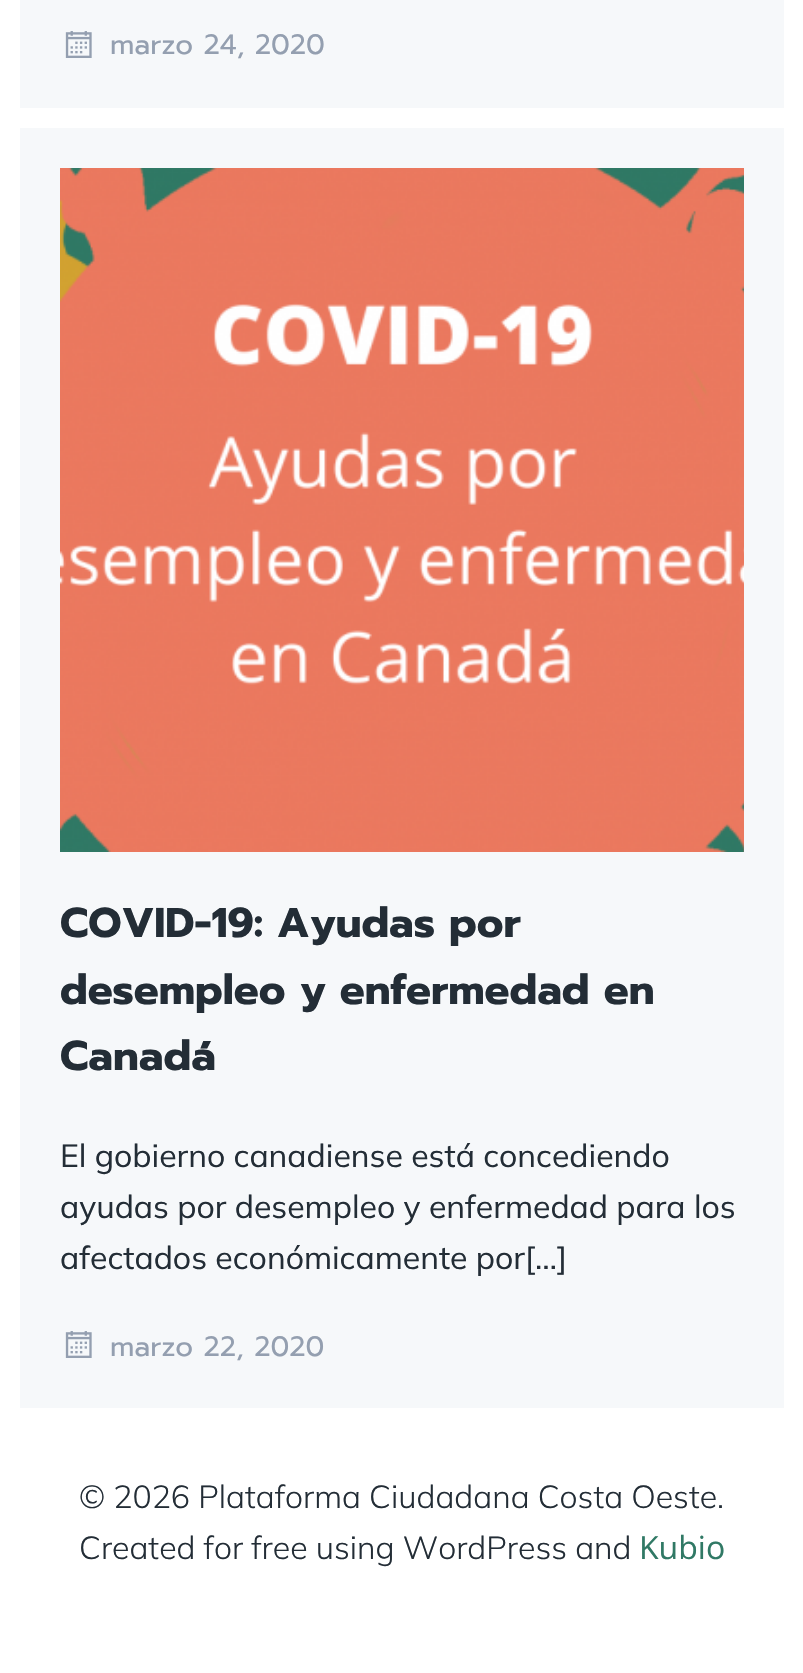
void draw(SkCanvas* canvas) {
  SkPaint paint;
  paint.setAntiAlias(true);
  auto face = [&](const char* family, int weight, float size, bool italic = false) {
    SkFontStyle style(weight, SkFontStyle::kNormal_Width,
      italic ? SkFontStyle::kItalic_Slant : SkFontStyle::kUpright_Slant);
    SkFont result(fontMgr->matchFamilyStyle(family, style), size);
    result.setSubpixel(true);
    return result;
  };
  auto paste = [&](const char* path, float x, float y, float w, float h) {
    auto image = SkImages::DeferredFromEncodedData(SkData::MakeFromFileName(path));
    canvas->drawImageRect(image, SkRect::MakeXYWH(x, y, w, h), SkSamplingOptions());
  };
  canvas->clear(0xffffffff);
  paint.setColor(0xfff6f8fa);
  canvas->drawRect(SkRect::MakeXYWH(20, 0, 764, 108), paint);
  paste("img/1.png", 65, 31, 27, 27);
  canvas->drawRect(SkRect::MakeXYWH(20, 128, 764, 1280), paint);
  paste("img/2.png", 60, 168, 684, 684);
  paste("img/1.png", 65, 1331, 27, 27);
  auto f0 = face("Prompt", 400, 28);
  paint.setColor(0xff949fb0);
  canvas->drawString("marzo 24, 2020", 110, 54, f0, paint);
  auto f1 = face("Prompt", 700, 41.6f);
  paint.setColor(0xff232d36);
  {
    const struct { const char* s; float x, y; } items[] = {
      {"COVID-19: Ayudas por", 60, 937},
      {"desempleo y enfermedad en", 60, 1004},
      {"Canadá", 60, 1070},
    };
    for (auto [s, x, y] : items) {
      canvas->drawString(s, x, y, f1, paint);
    }
  }
  auto f2 = face("Mulish", 400, 32);
  {
    const struct { const char* s; float x, y; } items[] = {
      {"El gobierno canadiense está concediendo", 60, 1167},
      {"ayudas por desempleo y enfermedad para los", 60, 1218},
      {"afectados económicamente por[…]", 60, 1269},
    };
    for (auto [s, x, y] : items) {
      canvas->drawString(s, x, y, f2, paint);
    }
  }
  paint.setColor(0xff949fb0);
  canvas->drawString("marzo 22, 2020", 110, 1356, f0, paint);
  auto f3 = face("Mulish", 300, 32);
  paint.setColor(0xff232d36);
  canvas->drawString("© 2026 Plataforma Ciudadana Costa Oeste.", 79, 1508, f3, paint);
  canvas->drawString("Created for free using WordPress and", 79, 1559, f3, paint);
  auto f4 = face("Open Sans", 400, 32);
  paint.setColor(0xff307965);
  canvas->drawString("Kubio", 639, 1559, f4, paint);
}
